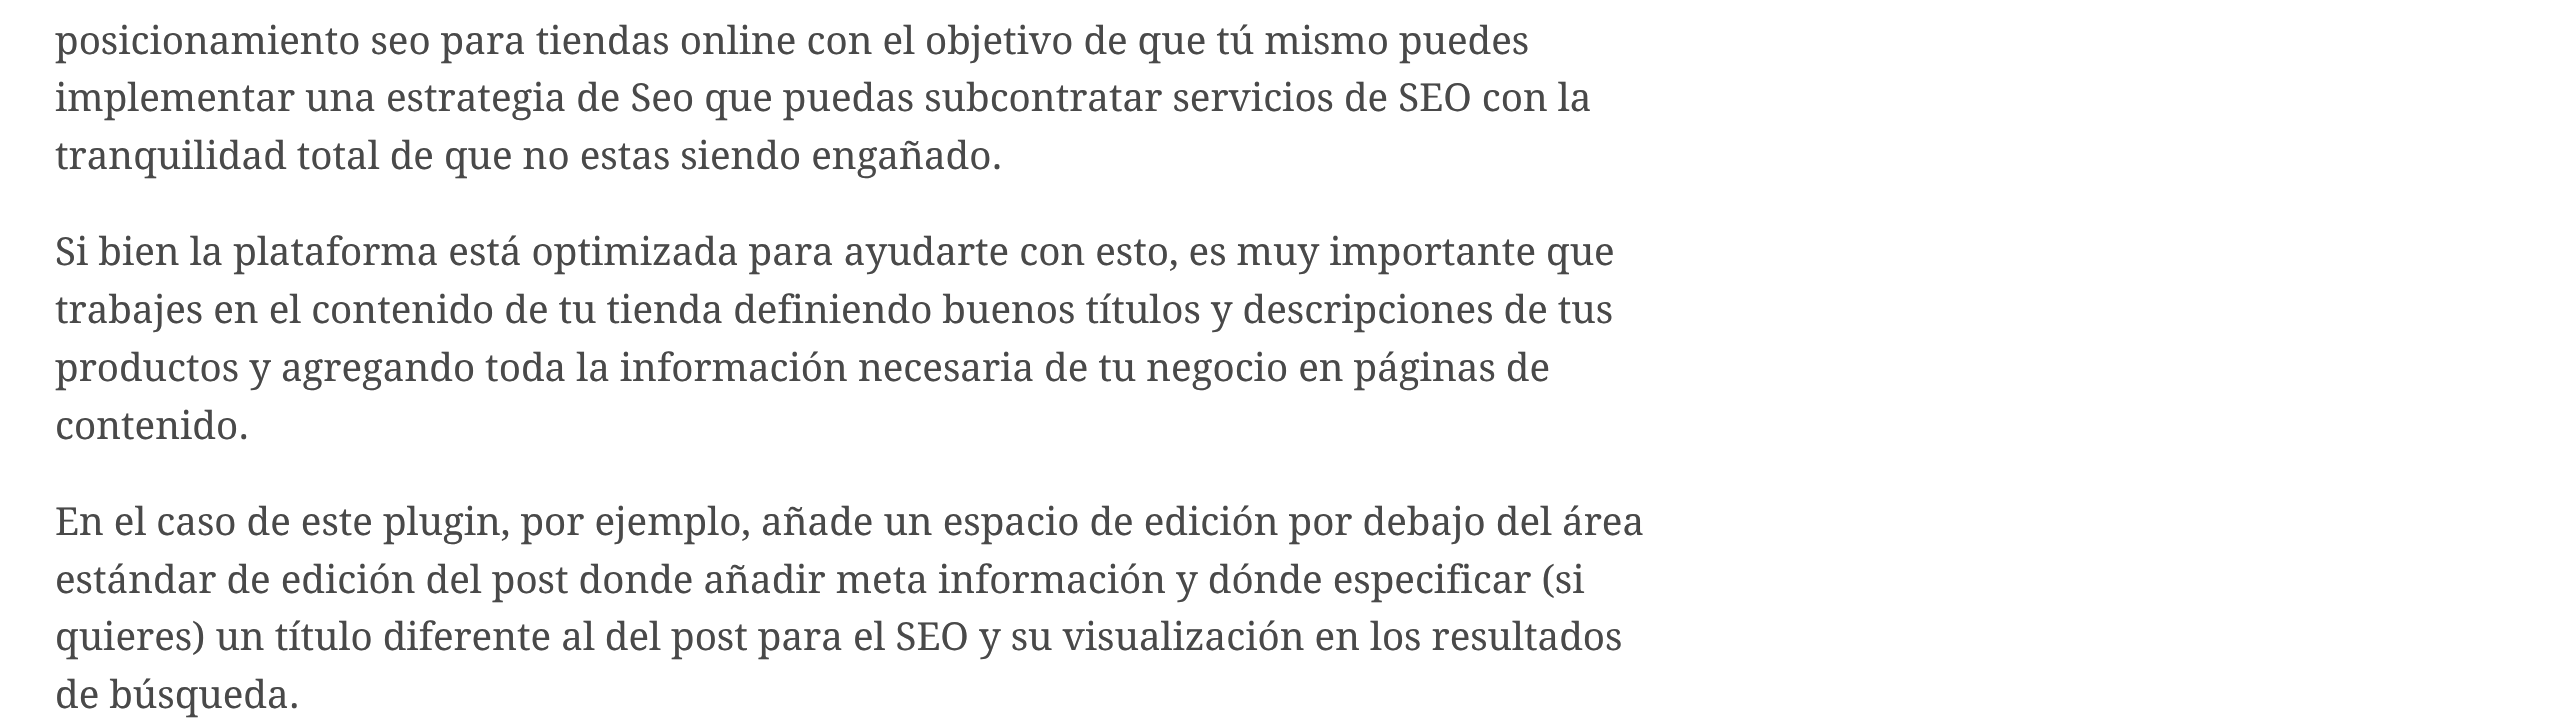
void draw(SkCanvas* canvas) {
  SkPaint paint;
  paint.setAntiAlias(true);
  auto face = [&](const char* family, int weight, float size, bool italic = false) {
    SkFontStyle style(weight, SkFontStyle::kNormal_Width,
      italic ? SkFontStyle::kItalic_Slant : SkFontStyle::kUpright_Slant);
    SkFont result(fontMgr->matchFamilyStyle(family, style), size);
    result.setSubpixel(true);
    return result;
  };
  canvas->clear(0xffffffff);
  auto f0 = face("Droid Serif", 400, 38.5f);
  paint.setColor(0xff494949);
  {
    const struct { const char* s; float x, y; } items[] = {
      {"posicionamiento seo para tiendas online con el objetivo de que tú mismo puedes", 55, 54},
      {"implementar una estrategia de Seo que puedas subcontratar servicios de SEO con la", 55, 111},
      {"tranquilidad total de que no estas siendo engañado.", 55, 169},
      {"Si bien la plataforma está optimizada para ayudarte con esto, es muy importante que", 55, 265},
      {"trabajes en el contenido de tu tienda definiendo buenos títulos y descripciones de tus", 55, 323},
      {"productos y agregando toda la información necesaria de tu negocio en páginas de", 55, 381},
      {"contenido.", 55, 439},
      {"En el caso de este plugin, por ejemplo, añade un espacio de edición por debajo del área", 55, 535},
      {"estándar de edición del post donde añadir meta información y dónde especificar (si", 55, 593},
      {"quieres) un título diferente al del post para el SEO y su visualización en los resultados", 55, 650},
      {"de búsqueda.", 55, 708},
    };
    for (auto [s, x, y] : items) {
      canvas->drawString(s, x, y, f0, paint);
    }
  }
}
